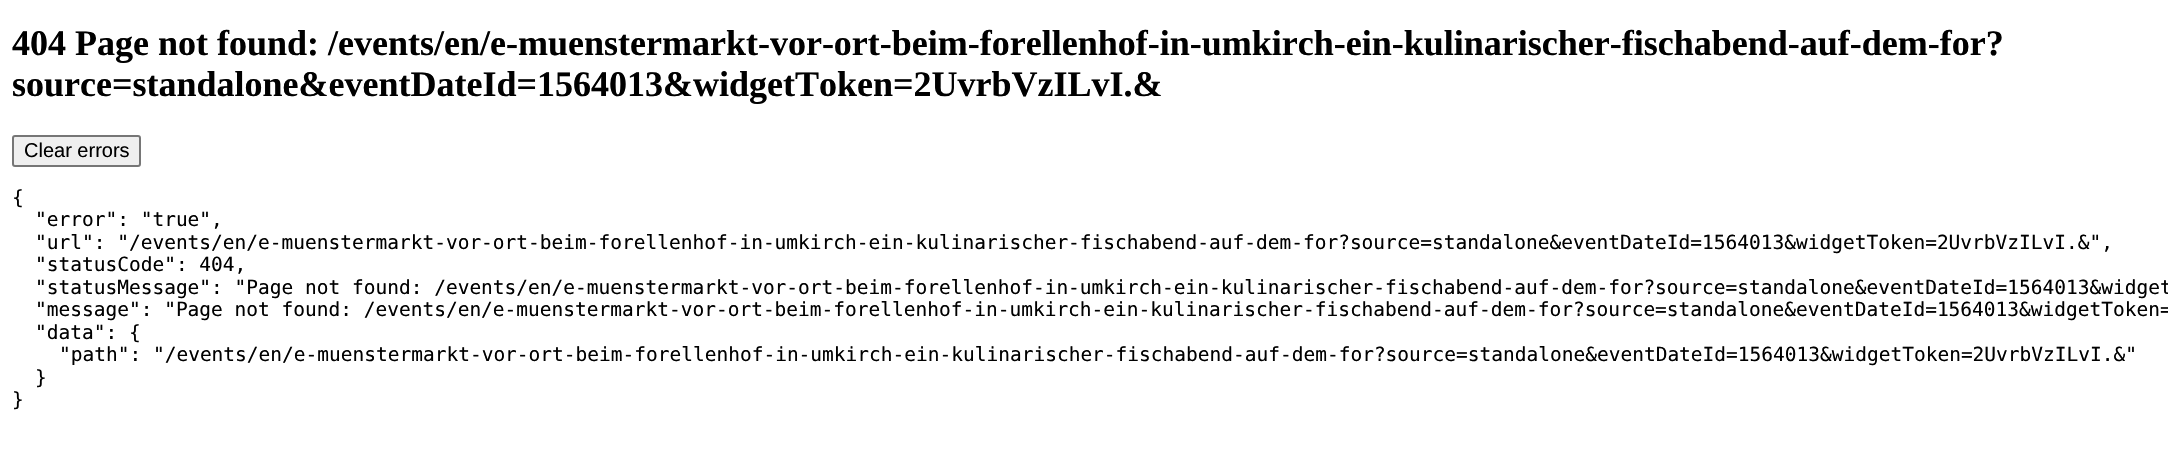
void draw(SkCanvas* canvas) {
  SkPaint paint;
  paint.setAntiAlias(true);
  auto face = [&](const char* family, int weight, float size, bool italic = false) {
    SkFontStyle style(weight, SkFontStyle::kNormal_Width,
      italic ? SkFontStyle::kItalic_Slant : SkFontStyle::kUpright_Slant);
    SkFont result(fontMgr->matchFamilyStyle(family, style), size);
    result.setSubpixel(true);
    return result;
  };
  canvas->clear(0xffffffff);
  paint.setColor(0xffefefef);
  canvas->drawRoundRect(SkRect::MakeXYWH(13, 136, 127, 30), 2, 2, paint);
  paint.setStroke(true);
  paint.setStrokeWidth(2);
  paint.setColor(0xff767676);
  canvas->drawRoundRect(SkRect::MakeXYWH(13, 136, 127, 30), 2, 2, paint);
  auto f0 = face("Liberation Serif", 700, 36);
  paint.setStroke(false);
  paint.setColor(0xff000000);
  canvas->drawString("404 Page not found: /events/en/e-muenstermarkt-vor-ort-beim-forellenhof-in-umkirch-ein-kulinarischer-fischabend-auf-dem-for?", 12, 55, f0, paint);
  canvas->drawString("source=standalone&eventDateId=1564013&widgetToken=2UvrbVzILvI.&", 12, 96, f0, paint);
  auto f1 = face("Liberation Sans", 400, 20);
  canvas->drawString("Clear errors", 24, 157, f1, paint);
  auto f2 = face("DejaVu Sans Mono", 400, 19.5f);
  {
    const struct { const char* s; float x, y; } items[] = {
      {"{", 12, 204},
      {"\"error\": \"true\",", 35, 226},
      {"\"url\": \"/events/en/e-muenstermarkt-vor-ort-beim-forellenhof-in-umkirch-ein-kulinarischer-fischabend-auf-dem-for?source=standalone&eventDateId=1564013&widgetToken=2UvrbVzILvI.&\",", 35, 249},
      {"\"statusCode\": 404,", 35, 271},
      {"\"statusMessage\": \"Page not found: /events/en/e-muenstermarkt-vor-ort-beim-forellenhof-in-umkirch-ein-kulinarischer-fischabend-auf-dem-for?source=standalone&eventDateId=1564013&widget", 35, 294},
      {"\"message\": \"Page not found: /events/en/e-muenstermarkt-vor-ort-beim-forellenhof-in-umkirch-ein-kulinarischer-fischabend-auf-dem-for?source=standalone&eventDateId=1564013&widgetToken=", 35, 316},
      {"\"data\": {", 35, 339},
      {"\"path\": \"/events/en/e-muenstermarkt-vor-ort-beim-forellenhof-in-umkirch-ein-kulinarischer-fischabend-auf-dem-for?source=standalone&eventDateId=1564013&widgetToken=2UvrbVzILvI.&\"", 59, 361},
      {"}", 35, 384},
      {"}", 12, 406},
    };
    for (auto [s, x, y] : items) {
      canvas->drawString(s, x, y, f2, paint);
    }
  }
}
